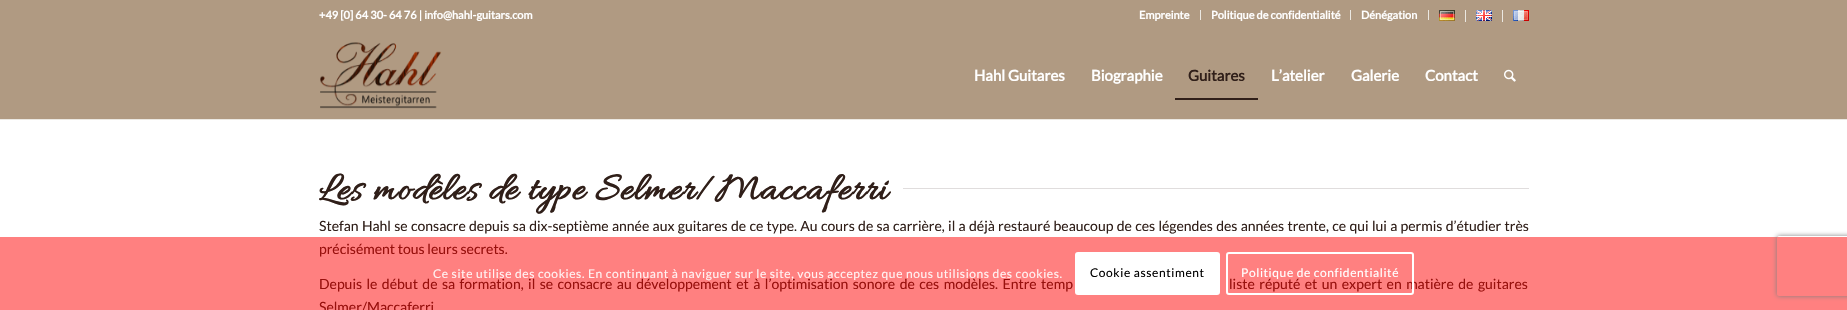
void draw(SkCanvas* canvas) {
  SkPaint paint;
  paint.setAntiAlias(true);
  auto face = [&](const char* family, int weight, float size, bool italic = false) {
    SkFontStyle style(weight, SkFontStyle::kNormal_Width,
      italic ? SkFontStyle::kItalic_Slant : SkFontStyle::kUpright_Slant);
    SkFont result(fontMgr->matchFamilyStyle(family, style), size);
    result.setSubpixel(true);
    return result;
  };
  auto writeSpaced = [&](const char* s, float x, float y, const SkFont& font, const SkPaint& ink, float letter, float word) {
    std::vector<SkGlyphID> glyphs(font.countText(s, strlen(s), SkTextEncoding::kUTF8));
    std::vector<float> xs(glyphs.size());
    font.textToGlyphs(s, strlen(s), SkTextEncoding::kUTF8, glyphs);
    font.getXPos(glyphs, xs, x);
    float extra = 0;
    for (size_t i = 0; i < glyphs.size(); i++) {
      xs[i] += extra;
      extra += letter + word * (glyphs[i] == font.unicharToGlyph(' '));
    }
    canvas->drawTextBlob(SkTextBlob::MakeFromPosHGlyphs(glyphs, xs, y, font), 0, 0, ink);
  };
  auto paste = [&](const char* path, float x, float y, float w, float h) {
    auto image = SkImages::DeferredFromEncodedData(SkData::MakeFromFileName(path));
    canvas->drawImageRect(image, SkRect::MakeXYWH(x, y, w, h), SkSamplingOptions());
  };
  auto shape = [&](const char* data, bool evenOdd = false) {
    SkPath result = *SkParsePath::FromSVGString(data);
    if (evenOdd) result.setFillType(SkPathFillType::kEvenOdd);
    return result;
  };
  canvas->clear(0xffb09a82);
  {
    const struct { float x, y, w, h; SkColor color; } items[] = {
      {1200, 10, 1, 10, 0xffebe8e2},
      {1350, 10, 1, 10, 0xffebe8e2},
      {1428, 10, 1, 10, 0xffebe8e2},
      {1465, 10, 1, 12, 0xffebe8e2},
    };
    for (auto [x, y, w, h, color] : items) {
      paint.setColor(color);
      canvas->drawRect(SkRect::MakeXYWH(x, y, w, h), paint);
    }
  }
  paste("img/1.png", 1439, 10, 16, 11);
  canvas->drawRect(SkRect::MakeXYWH(1502, 10, 1, 12), paint);
  paste("img/2.png", 1476, 10, 16, 11);
  paste("img/3.png", 1513, 10, 16, 11);
  paste("img/4.png", 320, 42, 122, 67);
  paint.setColor(0xff301f19);
  canvas->drawRect(SkRect::MakeXYWH(1175, 98, 83, 2), paint);
  paste("img/5.png", 1504, 69, 12, 13);
  {
    const struct { float x, y, w, h; SkColor color; } items[] = {
      {0, 120, 1847, 117, 0xffffffff},
      {0, 237, 1847, 73, 0xffff8080},
      {0, 119, 1847, 1, 0xffebe8e2},
      {903, 188, 626, 1, 0xffe0dddd},
    };
    for (auto [x, y, w, h, color] : items) {
      paint.setColor(color);
      canvas->drawRect(SkRect::MakeXYWH(x, y, w, h), paint);
    }
  }
  canvas->save();
  canvas->clipPath(shape("M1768 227H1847V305H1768ZM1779 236H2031C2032 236 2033 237 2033 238V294C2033 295 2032 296 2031 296H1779C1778 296 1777 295 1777 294V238C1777 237 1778 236 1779 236Z", true), true);
  paint.setColor(0xff808080);
  paint.setMaskFilter(SkMaskFilter::MakeBlur(kNormal_SkBlurStyle, 2.5f));
  canvas->drawRoundRect(SkRect::MakeXYWH(1777, 236, 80, 60), 2, 2, paint);
  paint.setMaskFilter(nullptr);
  canvas->restore();
  paint.setColor(0xffffffff);
  canvas->drawRoundRect(SkRect::MakeXYWH(1075, 252, 145, 43), 3, 3, paint);
  auto f0 = face("Lato", 700, 11);
  {
    const struct { const char* s; float x, y; } items[] = {
      {"+49 [0] 64 30- 64 76 | info@hahl-guitars.com", 319, 19},
      {"Empreinte", 1139, 19},
      {"Politique de confidentialité", 1211, 19},
      {"Dénégation", 1361, 19},
    };
    for (auto [s, x, y] : items) {
      canvas->drawString(s, x, y, f0, paint);
    }
  }
  auto f1 = face("Lato", 700, 15);
  canvas->drawString("Hahl Guitares", 974, 81, f1, paint);
  canvas->drawString("Biographie", 1091, 81, f1, paint);
  paint.setColor(0xff301f19);
  canvas->drawString("Guitares", 1188, 81, f1, paint);
  paint.setColor(0xffffffff);
  {
    const struct { const char* s; float x, y; } items[] = {
      {"L’atelier", 1271, 81},
      {"Galerie", 1351, 81},
      {"Contact", 1425, 81},
    };
    for (auto [s, x, y] : items) {
      canvas->drawString(s, x, y, f1, paint);
    }
  }
  auto f2 = face("Allura", 700, 40);
  paint.setColor(0xff301f19);
  writeSpaced("Les modèles de type Selmer/Maccaferri", 319, 199, f2, paint, 1, 0);
  auto f3 = face("Lato", 400, 14);
  writeSpaced("Stefan Hahl se consacre depuis sa dix-septième année aux guitares de ce type. Au cours de sa carrière, il a déjà restauré beaucoup de ces légendes des années trente, ce qui lui a permis d’étudier très", 319, 231, f3, paint, 0, 0.6f);
  paint.setColor(0xff98100d);
  canvas->drawString("précisément tous leurs secrets.", 319, 254, f3, paint);
  writeSpaced("Depuis le début de sa formation, il se consacre au développement et à l’optimisation sonore de ces modèles. Entre temp", 319, 289, f3, paint, 0, 1.75f);
  writeSpaced("liste réputé et un expert en matière de guitares", 1229, 289, f3, paint, 0, 1.75f);
  canvas->drawString("Selmer/Maccaferri", 319, 312, f3, paint);
  auto f4 = face("Lato", 400, 12);
  paint.setColor(0xfffff2f2);
  writeSpaced("Ce site utilise des cookies. En continuant à naviguer sur le site, vous acceptez que nous utilisions des cookies.", 433, 278, f4, paint, 0.6f, 0);
  paint.setColor(0xff000000);
  writeSpaced("Cookie assentiment", 1090, 277, f4, paint, 0.6f, 0);
  paint.setStroke(true);
  paint.setStrokeWidth(2);
  paint.setColor(0xffffffff);
  canvas->drawRoundRect(SkRect::MakeXYWH(1227, 253, 186, 41), 2, 2, paint);
  paint.setStroke(false);
  writeSpaced("Politique de confidentialité", 1241, 277, f4, paint, 0.6f, 0);
}
